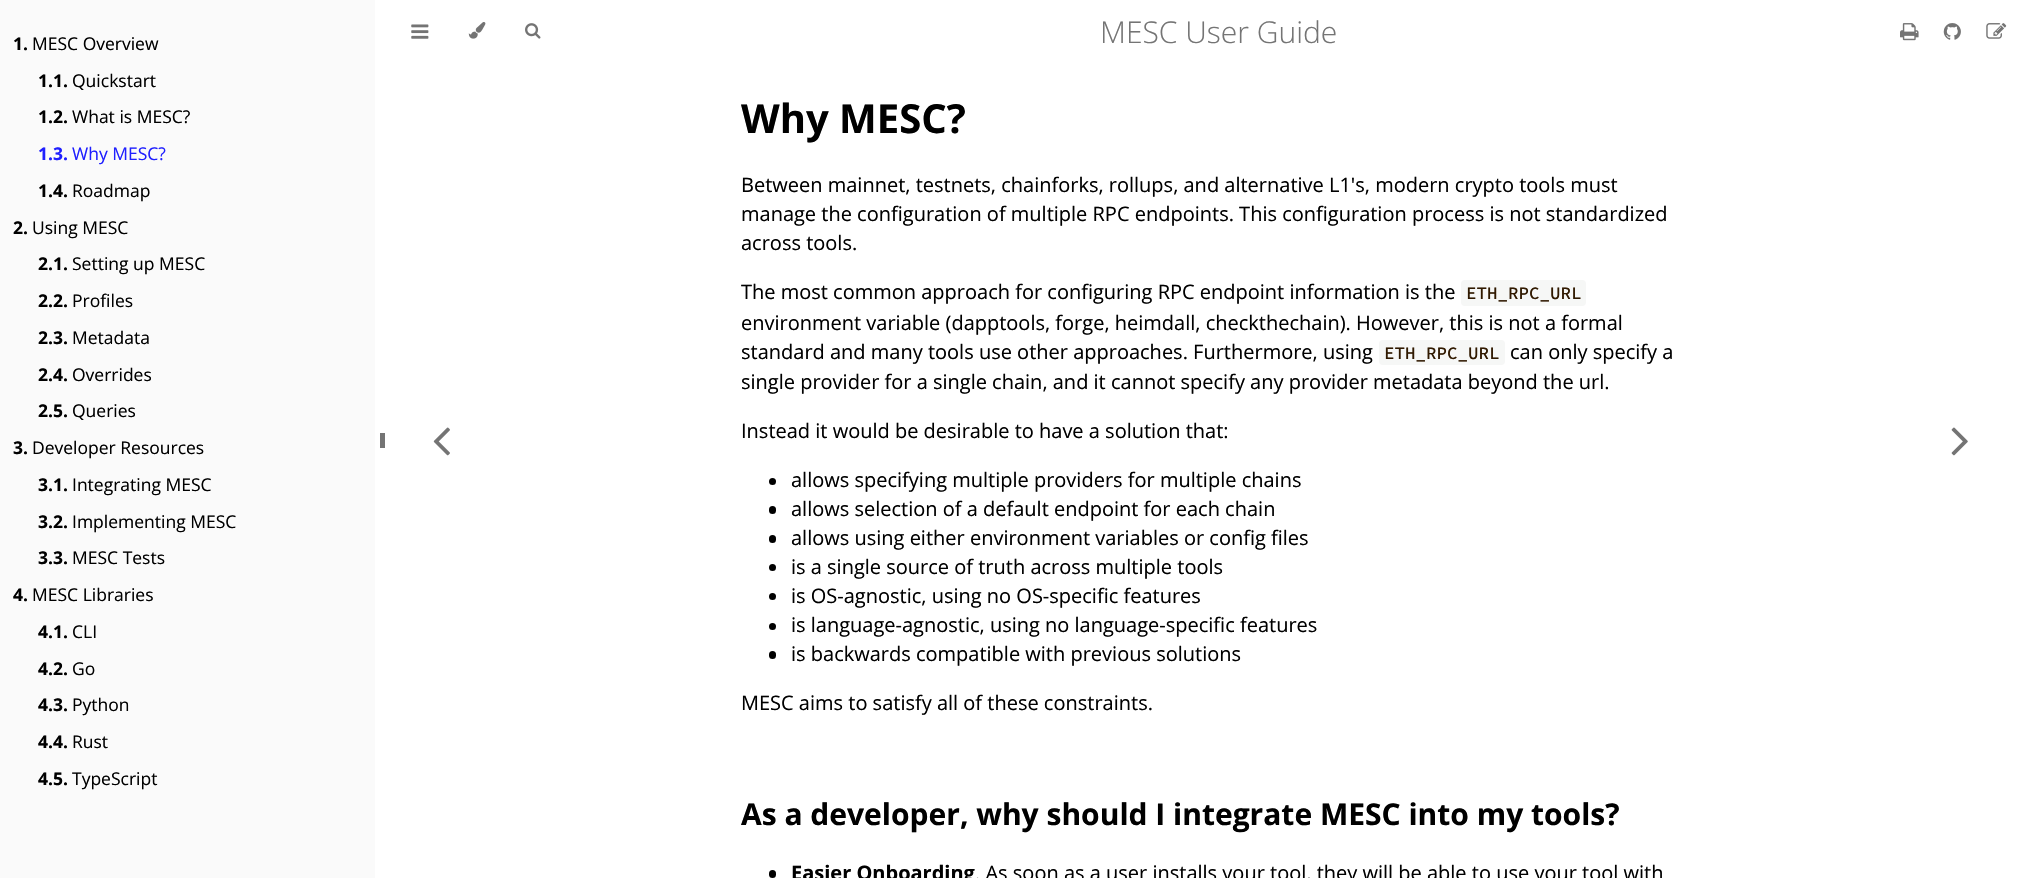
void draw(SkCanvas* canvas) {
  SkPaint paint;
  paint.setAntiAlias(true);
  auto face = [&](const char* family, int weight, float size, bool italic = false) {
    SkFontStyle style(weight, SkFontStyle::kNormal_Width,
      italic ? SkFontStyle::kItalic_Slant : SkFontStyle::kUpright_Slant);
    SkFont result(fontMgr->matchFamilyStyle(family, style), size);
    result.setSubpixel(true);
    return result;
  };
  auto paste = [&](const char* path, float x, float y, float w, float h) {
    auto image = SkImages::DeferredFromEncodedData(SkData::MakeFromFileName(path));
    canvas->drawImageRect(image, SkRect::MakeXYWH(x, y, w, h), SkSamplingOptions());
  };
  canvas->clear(0xffffffff);
  paint.setColor(0xfffafafa);
  canvas->drawRect(SkRect::MakeXYWH(0, 0, 375, 878), paint);
  paint.setColor(0xff747474);
  canvas->drawRect(SkRect::MakeXYWH(380, 433, 5, 15), paint);
  paste("img/1.png", 411, 24, 18, 15);
  paste("img/2.png", 468, 22, 18, 17);
  paste("img/3.png", 525, 23, 16, 16);
  paste("img/4.png", 1900, 23, 19, 18);
  paste("img/5.png", 1943, 23, 18, 17);
  paste("img/6.png", 1986, 23, 21, 16);
  paint.setColor(0xfff6f7f6);
  canvas->drawRoundRect(SkRect::MakeXYWH(1461, 280, 125, 26), 4, 4, paint);
  canvas->drawRoundRect(SkRect::MakeXYWH(1379, 340, 126, 25), 4, 4, paint);
  paint.setColor(0xff000000);
  canvas->drawCircle(772.5f, 481.5f, 3.5f, paint);
  canvas->drawRoundRect(SkRect::MakeXYWH(769, 506, 7, 8), 3.5f, 3.5f, paint);
  canvas->drawRoundRect(SkRect::MakeXYWH(769, 535, 7, 8), 3.5f, 3.5f, paint);
  canvas->drawCircle(772.5f, 567.5f, 3.5f, paint);
  canvas->drawCircle(772.5f, 596.5f, 3.5f, paint);
  canvas->drawCircle(772.5f, 626.5f, 3.5f, paint);
  canvas->drawRoundRect(SkRect::MakeXYWH(769, 651, 7, 8), 3.5f, 3.5f, paint);
  canvas->drawRoundRect(SkRect::MakeXYWH(769, 870, 7, 8), 3.5f, 3.5f, paint);
  paste("img/7.png", 433, 427, 17, 29);
  paste("img/8.png", 1951, 427, 17, 29);
  auto f0 = face("Open Sans", 700, 17.5f);
  canvas->drawString("1.", 13, 50, f0, paint);
  auto f1 = face("Open Sans", 400, 17.5f);
  canvas->drawString("MESC Overview", 32, 50, f1, paint);
  canvas->drawString("1.1.", 38, 87, f0, paint);
  canvas->drawString("Quickstart", 72, 87, f1, paint);
  canvas->drawString("1.2.", 38, 123, f0, paint);
  canvas->drawString("What is MESC?", 72, 123, f1, paint);
  paint.setColor(0xff1f1fff);
  canvas->drawString("1.3.", 38, 160, f0, paint);
  canvas->drawString("Why MESC?", 72, 160, f1, paint);
  paint.setColor(0xff000000);
  canvas->drawString("1.4.", 38, 197, f0, paint);
  canvas->drawString("Roadmap", 72, 197, f1, paint);
  canvas->drawString("2.", 13, 234, f0, paint);
  canvas->drawString("Using MESC", 32, 234, f1, paint);
  canvas->drawString("2.1.", 38, 270, f0, paint);
  canvas->drawString("Setting up MESC", 72, 270, f1, paint);
  canvas->drawString("2.2.", 38, 307, f0, paint);
  canvas->drawString("Profiles", 72, 307, f1, paint);
  canvas->drawString("2.3.", 38, 344, f0, paint);
  canvas->drawString("Metadata", 72, 344, f1, paint);
  canvas->drawString("2.4.", 38, 381, f0, paint);
  canvas->drawString("Overrides", 72, 381, f1, paint);
  canvas->drawString("2.5.", 38, 417, f0, paint);
  canvas->drawString("Queries", 72, 417, f1, paint);
  canvas->drawString("3.", 13, 454, f0, paint);
  canvas->drawString("Developer Resources", 32, 454, f1, paint);
  canvas->drawString("3.1.", 38, 491, f0, paint);
  canvas->drawString("Integrating MESC", 72, 491, f1, paint);
  canvas->drawString("3.2.", 38, 528, f0, paint);
  canvas->drawString("Implementing MESC", 72, 528, f1, paint);
  canvas->drawString("3.3.", 38, 564, f0, paint);
  canvas->drawString("MESC Tests", 72, 564, f1, paint);
  canvas->drawString("4.", 13, 601, f0, paint);
  canvas->drawString("MESC Libraries", 32, 601, f1, paint);
  canvas->drawString("4.1.", 38, 638, f0, paint);
  canvas->drawString("CLI", 72, 638, f1, paint);
  canvas->drawString("4.2.", 38, 675, f0, paint);
  canvas->drawString("Go", 72, 675, f1, paint);
  canvas->drawString("4.3.", 38, 711, f0, paint);
  canvas->drawString("Python", 72, 711, f1, paint);
  canvas->drawString("4.4.", 38, 748, f0, paint);
  canvas->drawString("Rust", 72, 748, f1, paint);
  canvas->drawString("4.5.", 38, 785, f0, paint);
  canvas->drawString("TypeScript", 72, 785, f1, paint);
  auto f2 = face("Open Sans", 300, 30);
  paint.setColor(0xff747474);
  canvas->drawString("MESC User Guide", 1100, 43, f2, paint);
  auto f3 = face("Open Sans", 700, 40);
  paint.setColor(0xff000000);
  canvas->drawString("Why MESC?", 741, 133, f3, paint);
  auto f4 = face("Open Sans", 400, 20);
  {
    const struct { const char* s; float x, y; } items[] = {
      {"Between mainnet, testnets, chainforks, rollups, and alternative L1's, modern crypto tools must", 741, 192},
      {"manage the configuration of multiple RPC endpoints. This configuration process is not standardized", 741, 221},
      {"across tools.", 741, 250},
      {"The most common approach for configuring RPC endpoint information is the", 741, 299},
    };
    for (auto [s, x, y] : items) {
      canvas->drawString(s, x, y, f4, paint);
    }
  }
  auto f5 = face("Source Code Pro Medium", 500, 17.5f);
  paint.setColor(0xff301900);
  canvas->drawString("ETH_RPC_URL", 1466, 299, f5, paint);
  paint.setColor(0xff000000);
  canvas->drawString("environment variable (dapptools, forge, heimdall, checkthechain). However, this is not a formal", 741, 330, f4, paint);
  canvas->drawString("standard and many tools use other approaches. Furthermore, using", 741, 359, f4, paint);
  paint.setColor(0xff301900);
  canvas->drawString("ETH_RPC_URL", 1384, 359, f5, paint);
  paint.setColor(0xff000000);
  {
    const struct { const char* s; float x, y; } items[] = {
      {"can only specify a", 1510, 359},
      {"single provider for a single chain, and it cannot specify any provider metadata beyond the url.", 741, 389},
      {"Instead it would be desirable to have a solution that:", 741, 438},
      {"allows specifying multiple providers for multiple chains", 791, 487},
      {"allows selection of a default endpoint for each chain", 791, 516},
      {"allows using either environment variables or config files", 791, 545},
      {"is a single source of truth across multiple tools", 791, 574},
      {"is OS-agnostic, using no OS-specific features", 791, 603},
      {"is language-agnostic, using no language-specific features", 791, 632},
      {"is backwards compatible with previous solutions", 791, 661},
      {"MESC aims to satisfy all of these constraints.", 741, 710},
    };
    for (auto [s, x, y] : items) {
      canvas->drawString(s, x, y, f4, paint);
    }
  }
  auto f6 = face("Open Sans", 700, 30);
  canvas->drawString("As a developer, why should I integrate MESC into my tools?", 741, 825, f6, paint);
  auto f7 = face("Open Sans", 700, 20);
  canvas->drawString("Easier Onboarding", 791, 880, f7, paint);
  canvas->drawString(". As soon as a user installs your tool, they will be able to use your tool with", 975, 880, f4, paint);
}
